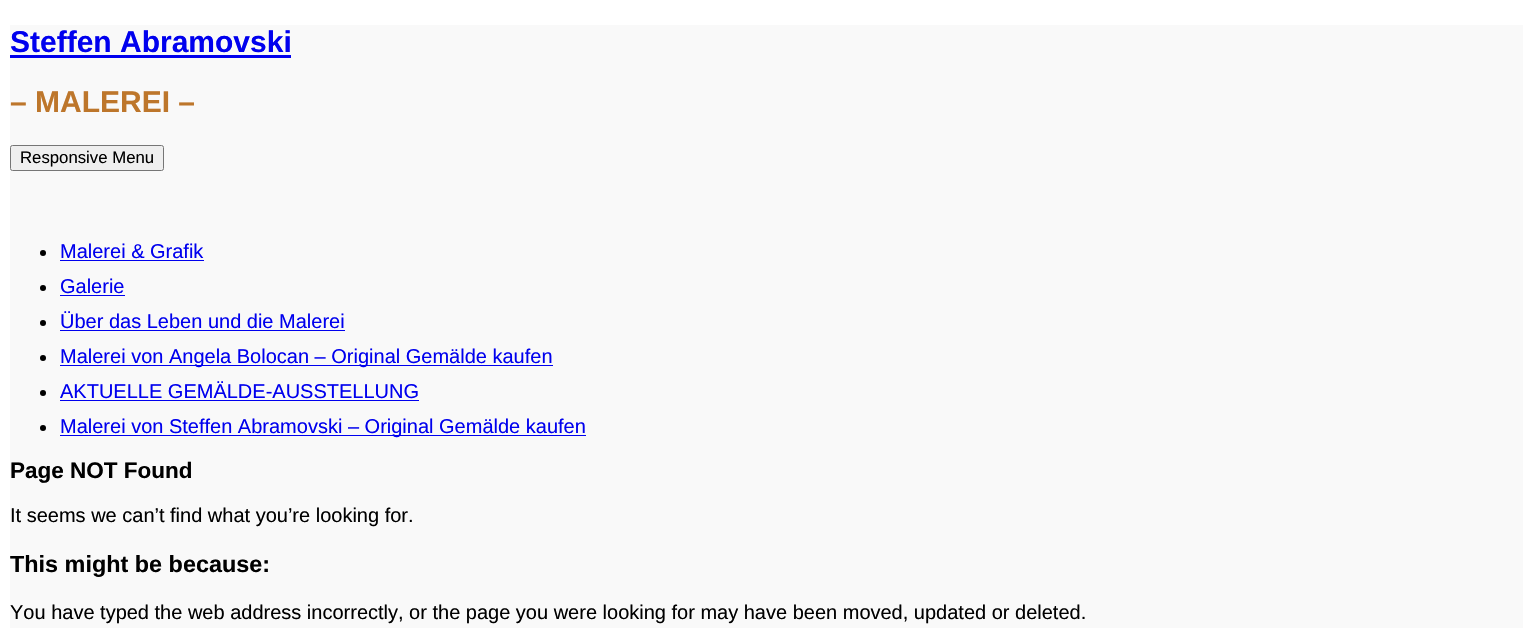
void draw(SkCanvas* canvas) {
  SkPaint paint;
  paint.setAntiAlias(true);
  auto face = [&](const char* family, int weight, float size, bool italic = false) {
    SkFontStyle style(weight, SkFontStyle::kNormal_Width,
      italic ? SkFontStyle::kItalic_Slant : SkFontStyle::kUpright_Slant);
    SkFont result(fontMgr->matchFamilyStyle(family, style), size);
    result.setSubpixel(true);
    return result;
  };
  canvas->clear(0xffffffff);
  paint.setColor(0xfff9f9f9);
  canvas->drawRect(SkRect::MakeXYWH(10, 25, 1513, 603), paint);
  paint.setColor(0xff0000ee);
  canvas->drawRect(SkRect::MakeXYWH(10, 55, 281, 3), paint);
  paint.setColor(0xffefefef);
  canvas->drawRoundRect(SkRect::MakeXYWH(10.5f, 145.5f, 153, 25), 2, 2, paint);
  paint.setStroke(true);
  paint.setStrokeWidth(1);
  paint.setColor(0xff767676);
  canvas->drawRoundRect(SkRect::MakeXYWH(10.5f, 145.5f, 153, 25), 2, 2, paint);
  paint.setStroke(false);
  paint.setColor(0xff000000);
  canvas->drawCircle(43, 253, 3, paint);
  paint.setColor(0xff0000ee);
  canvas->drawRect(SkRect::MakeXYWH(60, 260, 144, 1), paint);
  paint.setColor(0xff000000);
  canvas->drawCircle(43, 288, 3, paint);
  paint.setColor(0xff0000ee);
  canvas->drawRect(SkRect::MakeXYWH(60, 295, 65, 1), paint);
  paint.setColor(0xff000000);
  canvas->drawCircle(43, 323, 3, paint);
  paint.setColor(0xff0000ee);
  canvas->drawRect(SkRect::MakeXYWH(60, 330, 285, 1), paint);
  paint.setColor(0xff000000);
  canvas->drawCircle(43, 358, 3, paint);
  paint.setColor(0xff0000ee);
  canvas->drawRect(SkRect::MakeXYWH(60, 365, 493, 1), paint);
  paint.setColor(0xff000000);
  canvas->drawCircle(43, 393, 3, paint);
  paint.setColor(0xff0000ee);
  canvas->drawRect(SkRect::MakeXYWH(60, 400, 359, 1), paint);
  paint.setColor(0xff000000);
  canvas->drawCircle(43, 428, 3, paint);
  paint.setColor(0xff0000ee);
  canvas->drawRect(SkRect::MakeXYWH(60, 435, 526, 1), paint);
  auto f0 = face("Liberation Sans", 700, 30);
  canvas->drawString("Steffen Abramovski", 10, 52, f0, paint);
  paint.setColor(0xffbd762b);
  canvas->drawString("– MALEREI –", 10, 112, f0, paint);
  auto f1 = face("Liberation Sans", 400, 16.75f);
  paint.setColor(0xff000000);
  canvas->drawString("Responsive Menu", 20, 163, f1, paint);
  auto f2 = face("Liberation Sans", 400, 20);
  paint.setColor(0xff0000ee);
  {
    const struct { const char* s; float x, y; } items[] = {
      {"Malerei & Grafik", 60, 258},
      {"Galerie", 60, 293},
      {"Über das Leben und die Malerei", 60, 328},
      {"Malerei von Angela Bolocan – Original Gemälde kaufen", 60, 363},
      {"AKTUELLE GEMÄLDE-AUSSTELLUNG", 60, 398},
      {"Malerei von Steffen Abramovski – Original Gemälde kaufen", 60, 433},
    };
    for (auto [s, x, y] : items) {
      canvas->drawString(s, x, y, f2, paint);
    }
  }
  auto f3 = face("Liberation Sans", 700, 22.5f);
  paint.setColor(0xff000000);
  canvas->drawString("Page NOT Found", 10, 478, f3, paint);
  canvas->drawString("It seems we can’t find what you’re looking for.", 10, 522, f2, paint);
  auto f4 = face("Liberation Sans", 700, 23.4f);
  canvas->drawString("This might be because:", 10, 572, f4, paint);
  canvas->drawString("You have typed the web address incorrectly, or the page you were looking for may have been moved, updated or deleted.", 10, 619, f2, paint);
}
